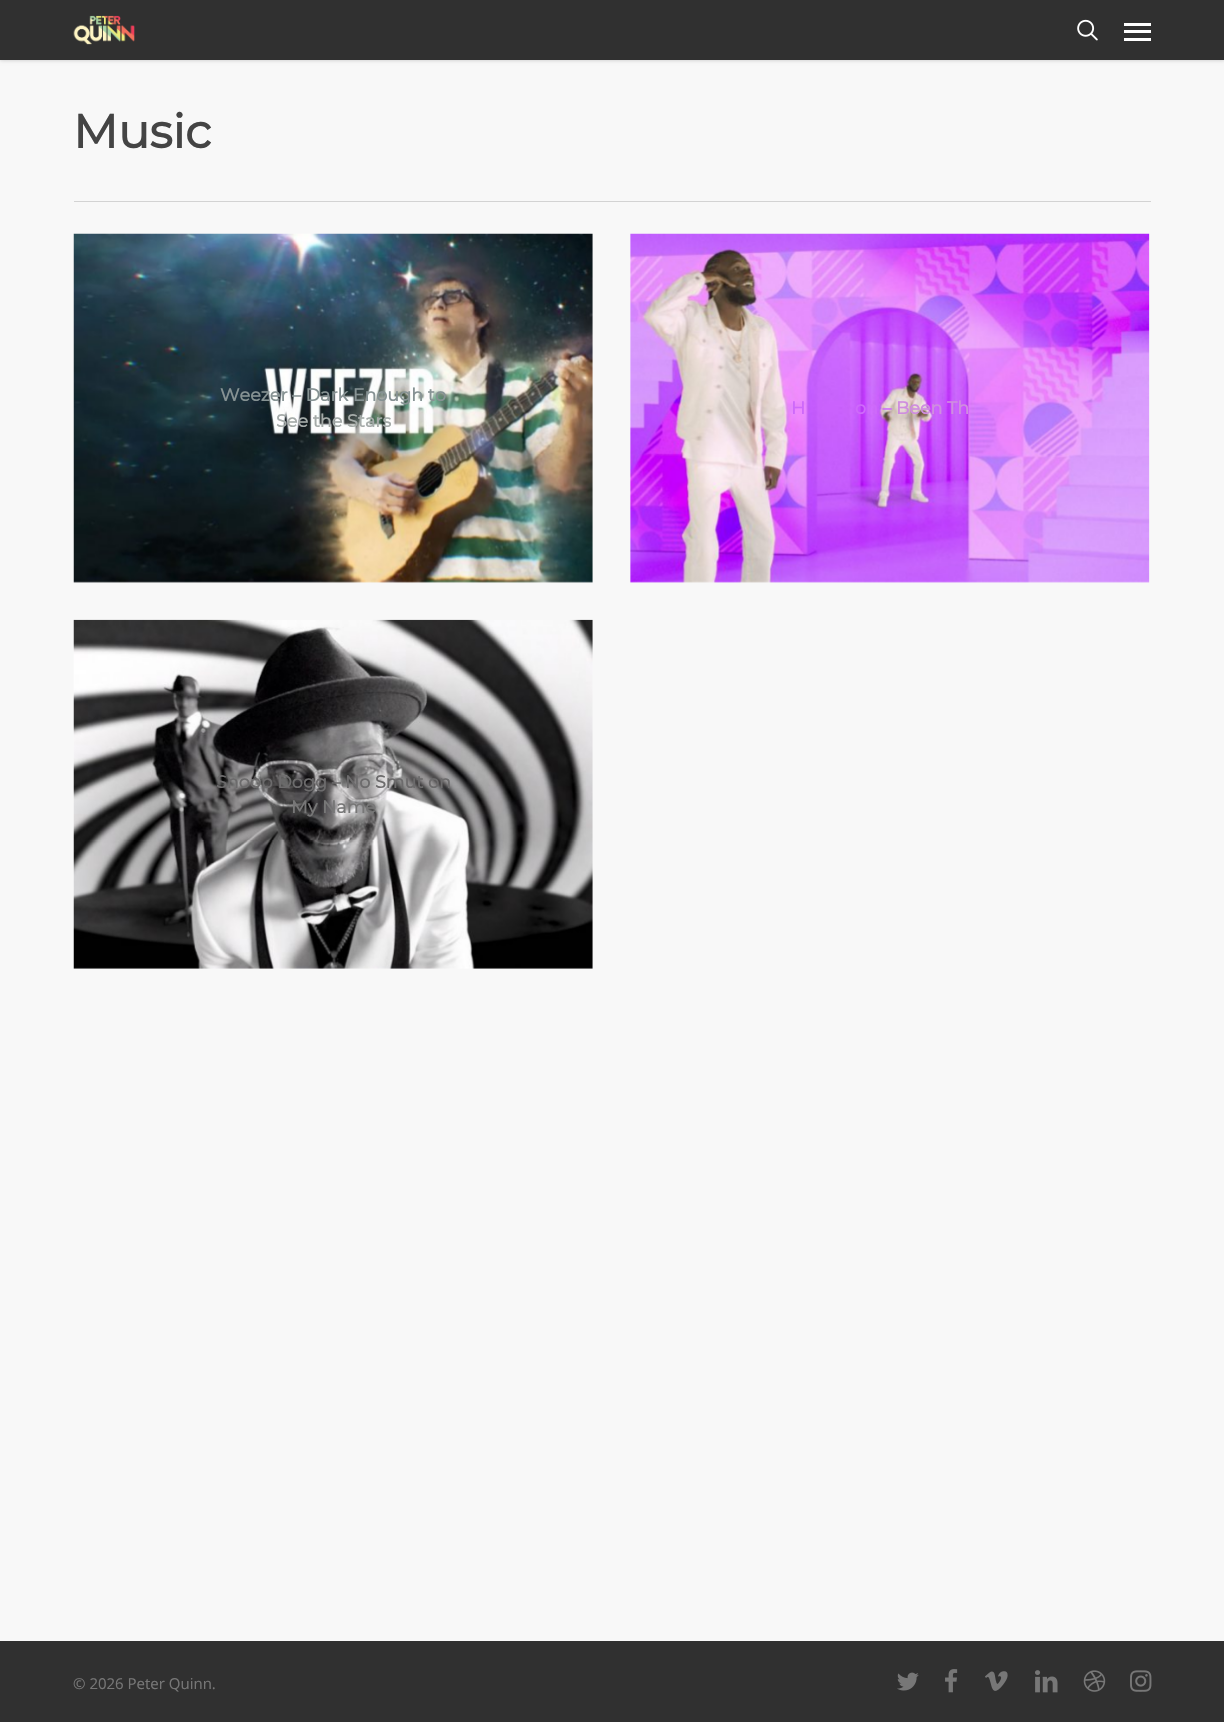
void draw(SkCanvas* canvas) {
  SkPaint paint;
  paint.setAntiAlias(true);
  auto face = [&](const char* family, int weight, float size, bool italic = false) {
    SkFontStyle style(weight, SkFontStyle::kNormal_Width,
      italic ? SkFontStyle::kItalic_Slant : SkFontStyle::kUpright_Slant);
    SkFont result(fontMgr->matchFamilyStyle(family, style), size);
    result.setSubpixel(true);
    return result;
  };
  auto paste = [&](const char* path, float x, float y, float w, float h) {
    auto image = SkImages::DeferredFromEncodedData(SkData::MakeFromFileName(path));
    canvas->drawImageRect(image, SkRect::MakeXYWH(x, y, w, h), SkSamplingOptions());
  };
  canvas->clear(0xff303030);
  paint.setColor(0xfff8f8f8);
  canvas->drawRect(SkRect::MakeXYWH(0, 60, 1224, 1581), paint);
  paint.setColor(0x38000000);
  paint.setMaskFilter(SkMaskFilter::MakeBlur(kNormal_SkBlurStyle, 2));
  canvas->drawRect(SkRect::MakeXYWH(0, 0, 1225, 60), paint);
  paint.setMaskFilter(nullptr);
  paint.setColor(0xff303030);
  canvas->drawRect(SkRect::MakeXYWH(0, 0, 1224, 60), paint);
  paste("img/1.png", 73, 15, 62, 30);
  paste("img/2.png", 1077, 19, 21, 22);
  {
    const struct { float x, y, w, h; SkColor color; } items[] = {
      {1124, 23, 27, 3, 0xffffffff},
      {1124, 38, 27, 3, 0xffffffff},
      {1124, 30, 27, 3, 0xffffffff},
      {74, 201, 1077, 1, 0xffd3d3d3},
    };
    for (auto [x, y, w, h, color] : items) {
      paint.setColor(color);
      canvas->drawRect(SkRect::MakeXYWH(x, y, w, h), paint);
    }
  }
  paste("img/3.png", 73, 233, 520, 350);
  paste("img/4.png", 630, 233, 520, 350);
  paste("img/5.png", 73, 619, 520, 350);
  paste("img/6.png", 897, 1672, 22, 19);
  paste("img/7.png", 945, 1669, 13, 24);
  paste("img/8.png", 985, 1671, 23, 20);
  paste("img/9.png", 1035, 1670, 23, 23);
  paste("img/10.png", 1083, 1670, 23, 22);
  paste("img/11.png", 1130, 1670, 22, 22);
  auto f0 = face("Montserrat", 700, 47);
  paint.setColor(0xff444444);
  canvas->drawString("Music", 73, 148, f0, paint);
  auto f1 = face("Montserrat", 700, 17.6f);
  paint.setColor(0xff869293);
  canvas->drawString("Weezer – Dark Enough to", 220, 401, f1, paint);
  paint.setColor(0xffa5aba9);
  canvas->drawString("See the Stars", 276, 427, f1, paint);
  paint.setColor(0xffce69fa);
  canvas->drawString("H", 791, 414, f1, paint);
  canvas->drawString("on –", 855, 414, f1, paint);
  paint.setColor(0xffcf8ddf);
  canvas->drawString("Been Th", 896, 414, f1, paint);
  paint.setColor(0xff6c6b6c);
  canvas->drawString("Snoop Dogg – No Smut on", 216, 788, f1, paint);
  paint.setColor(0xff777777);
  canvas->drawString("My Name", 291, 813, f1, paint);
  auto f2 = face("Open Sans", 400, 15);
  canvas->drawString("© 2026 Peter Quinn.", 73, 1689, f2, paint);
}
